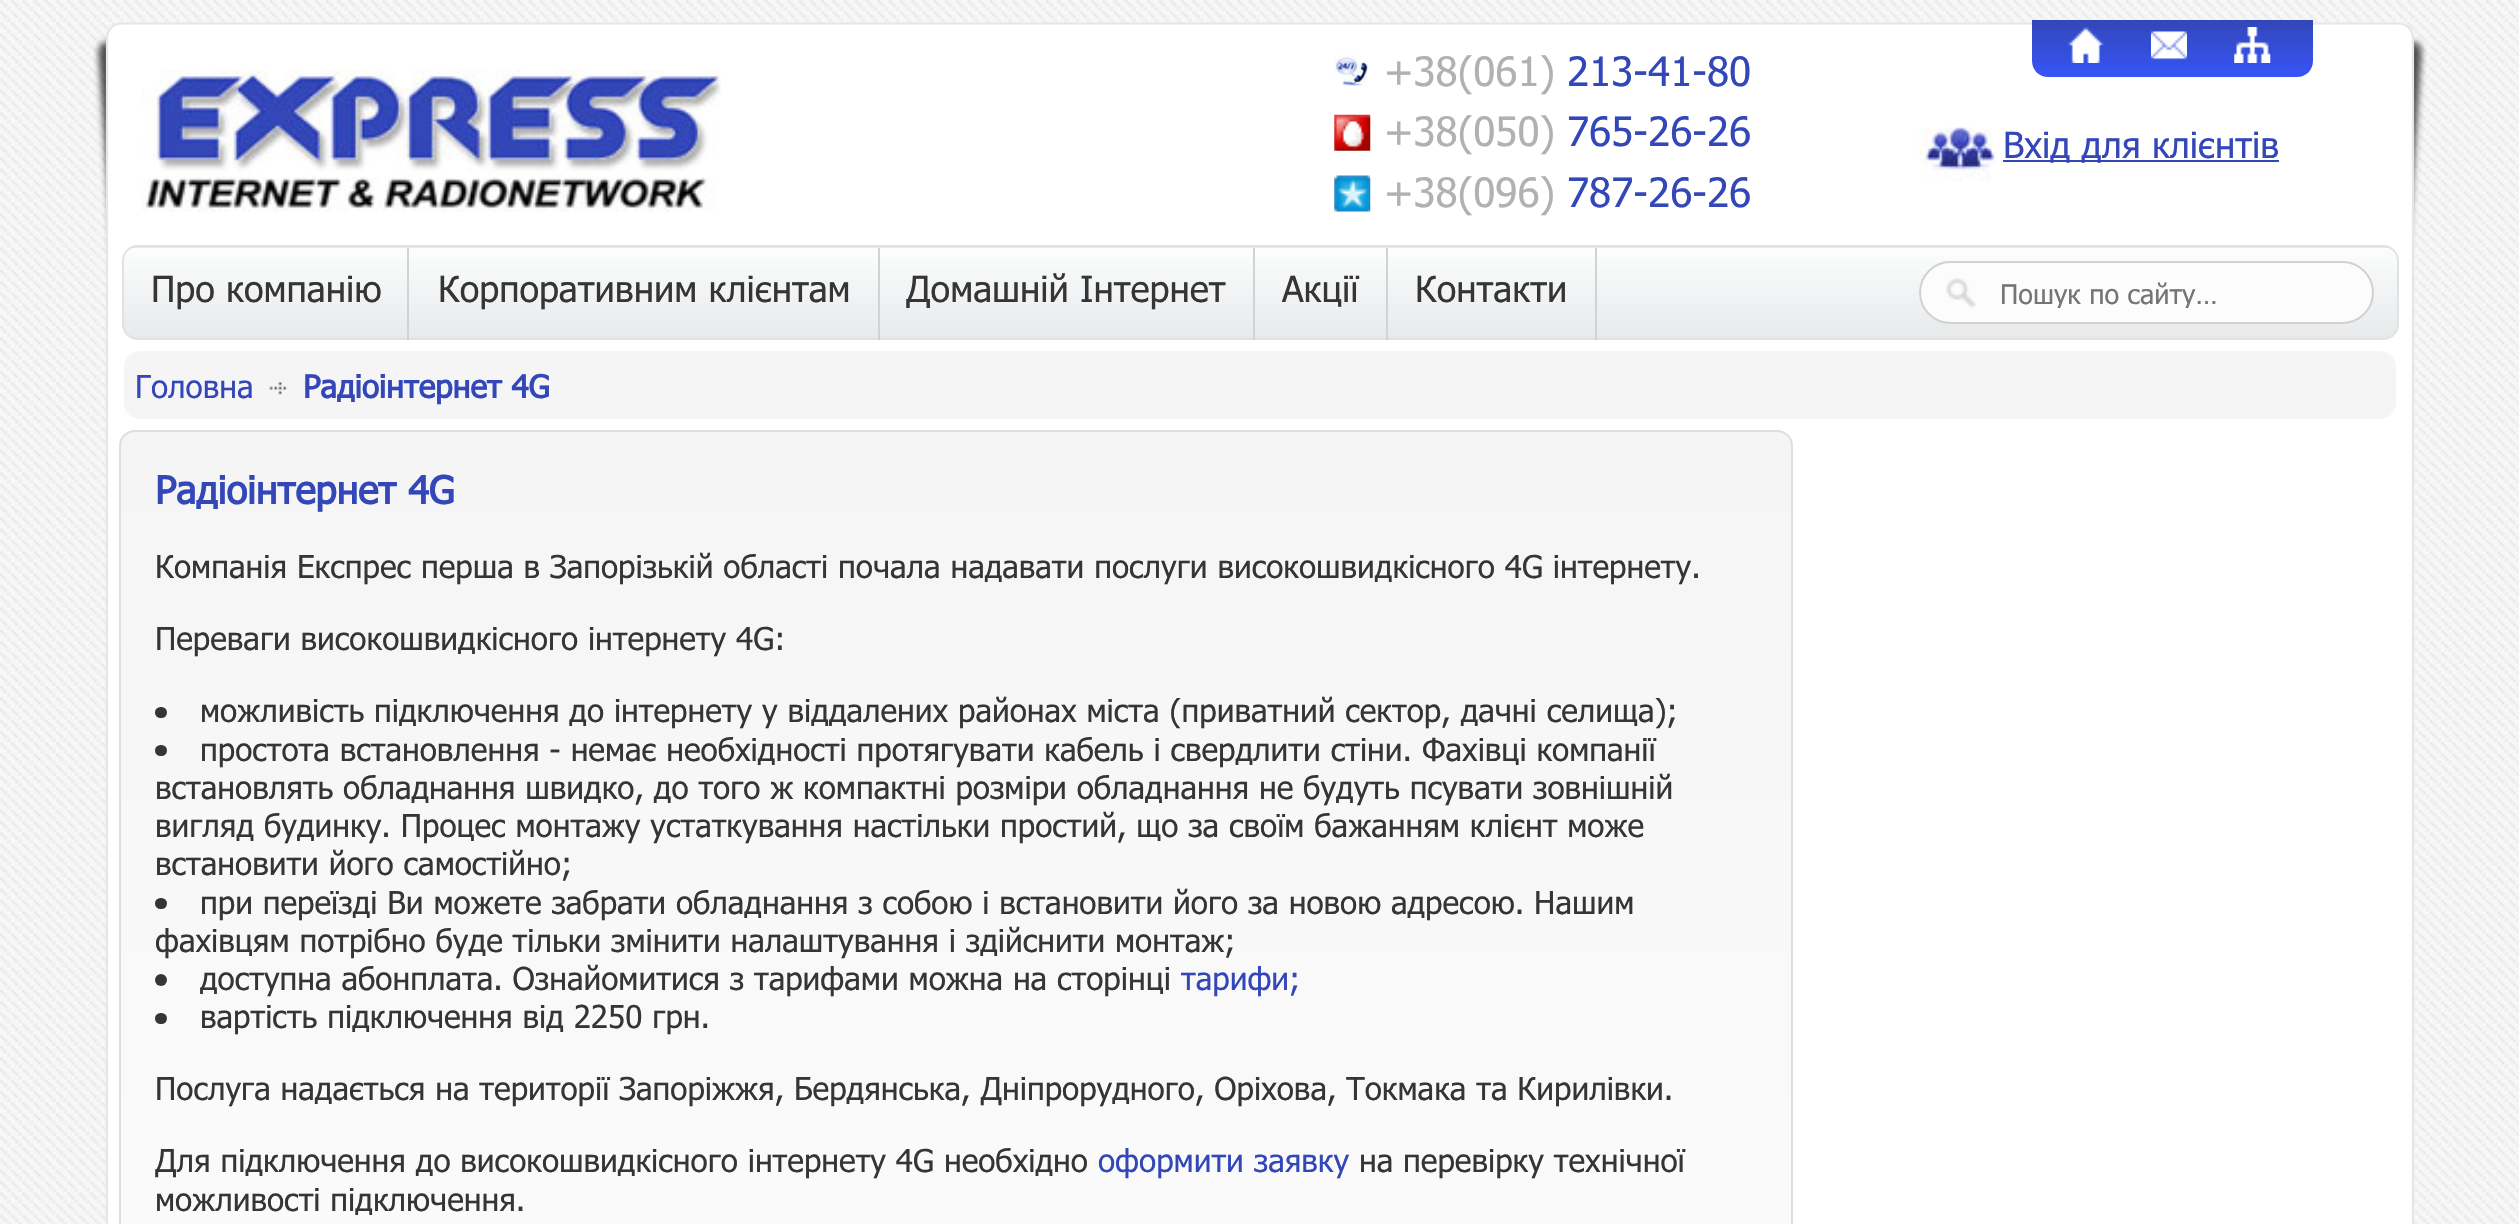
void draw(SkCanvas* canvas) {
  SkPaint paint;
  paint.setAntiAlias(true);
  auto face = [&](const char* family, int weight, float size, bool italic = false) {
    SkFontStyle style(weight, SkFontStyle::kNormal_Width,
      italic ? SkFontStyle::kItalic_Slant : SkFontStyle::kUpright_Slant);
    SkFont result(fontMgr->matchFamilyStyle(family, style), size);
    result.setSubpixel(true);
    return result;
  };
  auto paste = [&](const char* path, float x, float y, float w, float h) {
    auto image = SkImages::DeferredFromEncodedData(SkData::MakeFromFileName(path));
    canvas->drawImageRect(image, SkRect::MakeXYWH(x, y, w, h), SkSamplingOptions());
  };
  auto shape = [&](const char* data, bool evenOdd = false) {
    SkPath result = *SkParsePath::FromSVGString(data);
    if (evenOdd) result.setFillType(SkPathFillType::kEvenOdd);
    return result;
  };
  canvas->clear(0xffffffff);
  paste("img/1.png", 0, 0, 2519, 1224);
  paste("img/2.png", 93, 36, 2334, 215);
  paint.setColor(0xffffffff);
  canvas->drawRoundRect(SkRect::MakeXYWH(106, 23, 2308, 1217), 16, 16, paint);
  paint.setStroke(true);
  paint.setStrokeWidth(2.2f);
  paint.setColor(0xffe6e6e6);
  canvas->drawPath(shape("M111 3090.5C108.5 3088 107 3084 107 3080V38.5C107 34.5 108.5 30.5 111 28C114 25 117.5 23.5 121.5 23.5H2398.5C2402.5 23.5 2406 25 2409 28C2411.5 30.5 2413 34.5 2413 38V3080C2413 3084 2411.5 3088 2409 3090.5"), paint);
  paint.setStroke(false);
  {
    const SkColor colors[] = {0xff3347b8, 0xff3754f8};
    const float stops[] = {0, 1};
    const SkPoint ends[] = {{2172, 20}, {2172, 77}};
    paint.setShader(SkGradientShader::MakeLinear(ends, colors, stops, 2, SkTileMode::kClamp));
    paint.setAlpha(255);
  }
  canvas->drawPath(shape("M2032 20H2313V61C2313 70 2306 77 2297 77H2048C2039 77 2032 70 2032 61Z"), paint);
  paste("img/3.png", 2067, 27, 37, 36);
  paste("img/4.png", 2151, 31, 36, 29);
  paste("img/5.png", 2234, 27, 37, 36);
  paste("img/6.png", 142, 69, 579, 143);
  paste("img/7.png", 1334, 54, 34, 33);
  paste("img/8.png", 1334, 114, 37, 37);
  paste("img/9.png", 1334, 175, 37, 37);
  paste("img/10.png", 1919, 127, 79, 55);
  paint.setShader(nullptr);
  paint.setColor(0xff3347b8);
  canvas->drawRect(SkRect::MakeXYWH(2003, 160, 276, 2), paint);
  canvas->save();
  canvas->clipPath(shape("M138 245H2383C2392 245 2399 252 2399 261V324C2399 333 2392 340 2383 340H138C129 340 122 333 122 324V261C122 252 129 245 138 245Z"), true);
  {
    const SkColor colors[] = {0xfffcfdfd, 0xffe7e9eb};
    const float stops[] = {0, 1};
    const SkPoint ends[] = {{1260, 157}, {1260, 248}};
    paint.setShader(SkGradientShader::MakeLinear(ends, colors, stops, 2, SkTileMode::kClamp));
    paint.setAlpha(255);
  }
  canvas->drawRect(SkRect::MakeXYWH(122, 245, 2277, 3), paint);
  {
    const SkColor colors[] = {0xfffcfdfd, 0xffe7e9eb};
    const float stops[] = {0, 1};
    const SkPoint ends[] = {{1260, 247}, {1260, 338}};
    paint.setShader(SkGradientShader::MakeLinear(ends, colors, stops, 2, SkTileMode::kClamp));
    paint.setAlpha(255);
  }
  canvas->drawRect(SkRect::MakeXYWH(122, 248, 2277, 90), paint);
  canvas->restore();
  paint.setStroke(true);
  paint.setStrokeWidth(2);
  paint.setShader(nullptr);
  paint.setColor(0xffe2e2e2);
  canvas->drawRoundRect(SkRect::MakeXYWH(123, 246, 2275, 93), 15, 15, paint);
  paint.setStroke(false);
  {
    const struct { float x, y, w, h; SkColor color; } items[] = {
      {407, 248, 2, 92, 0xffd2d2d2},
      {878, 248, 2, 92, 0xffd2d2d2},
      {1253, 248, 2, 92, 0xffd2d2d2},
      {1386, 248, 2, 92, 0xffd2d2d2},
      {1595, 248, 2, 92, 0xffd2d2d2},
    };
    for (auto [x, y, w, h, color] : items) {
      paint.setColor(color);
      canvas->drawRect(SkRect::MakeXYWH(x, y, w, h), paint);
    }
  }
  paint.setColor(0xfffcfcfc);
  canvas->drawRoundRect(SkRect::MakeXYWH(1919, 261, 455, 63), 31.5f, 31.5f, paint);
  paste("img/11.png", 1946, 278, 30, 31);
  paint.setStroke(true);
  paint.setColor(0xffd1d1d1);
  canvas->drawRoundRect(SkRect::MakeXYWH(1920, 262, 453, 61), 30.5f, 30.5f, paint);
  paint.setStroke(false);
  paint.setColor(0xfff5f5f5);
  canvas->drawRoundRect(SkRect::MakeXYWH(124, 351, 2272, 68), 16, 16, paint);
  paste("img/12.png", 269, 382, 18, 13);
  canvas->save();
  canvas->clipPath(shape("M135 430H1777C1786 430 1793 437 1793 446V1892C1793 1901 1786 1908 1777 1908H135C126 1908 119 1901 119 1892V446C119 437 126 430 135 430Z"), true);
  {
    const SkColor colors[] = {0xfff5f5f5, 0xffffffff};
    const float stops[] = {0, 1};
    const SkPoint ends[] = {{956, 432}, {956, 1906}};
    paint.setShader(SkGradientShader::MakeLinear(ends, colors, stops, 2, SkTileMode::kClamp));
    paint.setAlpha(255);
  }
  canvas->drawRect(SkRect::MakeXYWH(119, 432, 1674, 792), paint);
  canvas->restore();
  paint.setStroke(true);
  paint.setShader(nullptr);
  paint.setColor(0xffdedede);
  canvas->drawRoundRect(SkRect::MakeXYWH(120, 431, 1672, 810), 15, 15, paint);
  paint.setStroke(false);
  paint.setColor(0xff353535);
  canvas->drawRoundRect(SkRect::MakeXYWH(155, 707, 12, 11), 5.5f, 5.5f, paint);
  canvas->drawRoundRect(SkRect::MakeXYWH(155, 745, 12, 11), 5.5f, 5.5f, paint);
  canvas->drawRoundRect(SkRect::MakeXYWH(155, 898, 12, 11), 5.5f, 5.5f, paint);
  canvas->drawCircle(161, 980, 6, paint);
  canvas->drawRoundRect(SkRect::MakeXYWH(155, 1013, 12, 11), 5.5f, 5.5f, paint);
  auto f0 = face("Tahoma", 400, 40.5f);
  paint.setColor(0xffb1b1b1);
  canvas->drawString("+38(061)", 1384, 86, f0, paint);
  paint.setColor(0xff3347b8);
  canvas->drawString("213-41-80", 1567, 86, f0, paint);
  paint.setColor(0xffb1b1b1);
  canvas->drawString("+38(050)", 1384, 146, f0, paint);
  paint.setColor(0xff3347b8);
  canvas->drawString("765-26-26", 1567, 146, f0, paint);
  paint.setColor(0xffb1b1b1);
  canvas->drawString("+38(096)", 1384, 207, f0, paint);
  paint.setColor(0xff3347b8);
  canvas->drawString("787-26-26", 1567, 207, f0, paint);
  auto f1 = face("Tahoma", 400, 36);
  canvas->drawString("Вхід для клієнтів", 2003, 158, f1, paint);
  paint.setColor(0xff353535);
  {
    const struct { const char* s; float x, y; } items[] = {
      {"Про компанію", 151, 302},
      {"Корпоративним клієнтам", 438, 302},
      {"Домашній Інтернет", 906, 302},
      {"Акції", 1282, 302},
      {"Контакти", 1415, 302},
    };
    for (auto [s, x, y] : items) {
      canvas->drawString(s, x, y, f1, paint);
    }
  }
  canvas->save();
  canvas->clipRect(SkRect::MakeXYWH(2000, 277, 338, 31));
  auto f2 = face("Tahoma", 400, 27);
  paint.setColor(0xff757575);
  canvas->drawString("Пошук по сайту…", 2000, 304, f2, paint);
  canvas->restore();
  auto f3 = face("Tahoma", 400, 31.5f);
  paint.setColor(0xff3347b8);
  canvas->drawString("Головна", 135, 398, f3, paint);
  auto f4 = face("Tahoma", 700, 31.5f);
  canvas->drawString("Радіоінтернет 4G", 303, 398, f4, paint);
  auto f5 = face("Tahoma", 700, 38.25f);
  canvas->drawString("Радіоінтернет 4G", 155, 504, f5, paint);
  paint.setColor(0xff353535);
  {
    const struct { const char* s; float x, y; } items[] = {
      {"Компанія Експрес перша в Запорізькій області почала надавати послуги високошвидкісного 4G інтернету.", 155, 578},
      {"Переваги високошвидкісного інтернету 4G:", 155, 650},
      {"можливість підключення до інтернету у віддалених районах міста (приватний сектор, дачні селища);", 200, 722},
      {"простота встановлення - немає необхідності протягувати кабель і свердлити стіни. Фахівці компанії", 200, 761},
      {"встановлять обладнання швидко, до того ж компактні розміри обладнання не будуть псувати зовнішній", 155, 799},
      {"вигляд будинку. Процес монтажу устаткування настільки простий, що за своїм бажанням клієнт може", 155, 837},
      {"встановити його самостійно;", 155, 875},
      {"при переїзді Ви можете забрати обладнання з собою і встановити його за новою адресою. Нашим", 200, 914},
      {"фахівцям потрібно буде тільки змінити налаштування і здійснити монтаж;", 155, 952},
      {"доступна абонплата. Ознайомитися з тарифами можна на сторінці", 200, 990},
    };
    for (auto [s, x, y] : items) {
      canvas->drawString(s, x, y, f3, paint);
    }
  }
  paint.setColor(0xff3347b8);
  canvas->drawString("тарифи;", 1181, 990, f3, paint);
  paint.setColor(0xff353535);
  {
    const struct { const char* s; float x, y; } items[] = {
      {"вартість підключення від 2250 грн.", 200, 1028},
      {"Послуга надається на території Запоріжжя, Бердянська, Дніпрорудного, Оріхова, Токмака та Кирилівки.", 155, 1100},
      {"Для підключення до високошвидкісного інтернету 4G необхідно", 155, 1172},
    };
    for (auto [s, x, y] : items) {
      canvas->drawString(s, x, y, f3, paint);
    }
  }
  paint.setColor(0xff3347b8);
  canvas->drawString("оформити заявку", 1098, 1172, f3, paint);
  paint.setColor(0xff353535);
  canvas->drawString("на перевірку технічної", 1359, 1172, f3, paint);
  canvas->drawString("можливості підключення.", 155, 1211, f3, paint);
}
